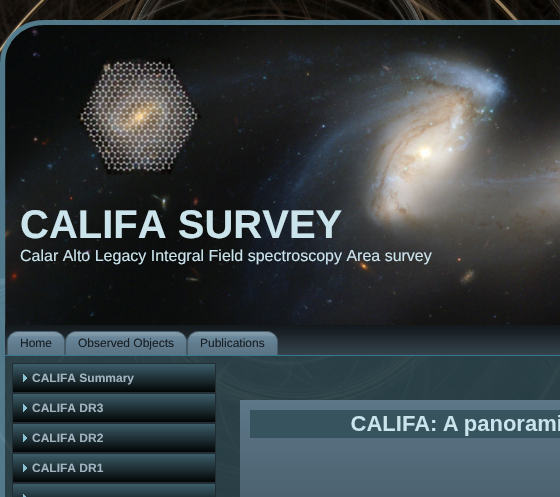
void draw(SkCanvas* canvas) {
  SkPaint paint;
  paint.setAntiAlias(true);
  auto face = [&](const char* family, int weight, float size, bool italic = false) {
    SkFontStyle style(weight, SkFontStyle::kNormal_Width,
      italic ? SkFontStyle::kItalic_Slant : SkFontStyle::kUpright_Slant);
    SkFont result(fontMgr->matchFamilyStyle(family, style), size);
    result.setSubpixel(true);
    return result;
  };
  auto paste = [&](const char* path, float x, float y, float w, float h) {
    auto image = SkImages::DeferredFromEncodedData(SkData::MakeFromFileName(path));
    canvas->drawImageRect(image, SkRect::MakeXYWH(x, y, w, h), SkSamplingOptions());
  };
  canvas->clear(0xffffffff);
  paste("img/1.png", 559, 0, 1, 400);
  paste("img/2.png", 0, 0, 560, 497);
  paste("img/3.png", 0, 20, 43, 43);
  paste("img/4.png", 43, 20, 517, 5);
  paste("img/5.png", 0, 63, 43, 434);
  paste("img/6.png", 5, 25, 555, 300);
  paste("img/7.png", 43, 63, 517, 224);
  paste("img/8.png", 5, 325, 555, 31);
  paste("img/9.png", 7, 331, 47, 24);
  paste("img/10.png", 54, 331, 11, 24);
  paste("img/11.png", 65, 331, 111, 24);
  paste("img/10.png", 176, 331, 11, 24);
  paste("img/12.png", 187, 331, 80, 24);
  paste("img/10.png", 267, 331, 11, 24);
  paint.setColor(0xeb2a424a);
  canvas->drawRect(SkRect::MakeXYWH(43, 356, 517, 141), paint);
  paste("img/13.png", 12, 363, 189, 30);
  paste("img/14.png", 201, 363, 15, 30);
  paste("img/13.png", 12, 393, 189, 30);
  paste("img/15.png", 201, 393, 15, 30);
  paste("img/16.png", 12, 423, 189, 30);
  paste("img/17.png", 201, 423, 15, 30);
  paste("img/18.png", 12, 453, 189, 30);
  paste("img/17.png", 201, 453, 15, 30);
  paste("img/19.png", 12, 483, 189, 14);
  paste("img/20.png", 201, 483, 15, 14);
  paste("img/21.png", 240, 400, 320, 97);
  auto f0 = face("Liberation Sans", 700, 40);
  paint.setColor(0xffcbe4ec);
  canvas->drawString("CALIFA SURVEY", 20, 238, f0, paint);
  auto f1 = face("Liberation Sans", 400, 16);
  canvas->drawString("Calar Alto Legacy Integral Field spectroscopy Area survey", 20, 261, f1, paint);
  auto f2 = face("Liberation Sans", 400, 12);
  paint.setColor(0xff171d21);
  {
    const struct { const char* s; float x, y; } items[] = {
      {"Home", 20, 347},
      {"Observed Objects", 78, 347},
      {"Publications", 200, 347},
    };
    for (auto [s, x, y] : items) {
      canvas->drawString(s, x, y, f2, paint);
    }
  }
  auto f3 = face("Liberation Sans", 700, 12);
  paint.setColor(0xffa1b3bf);
  {
    const struct { const char* s; float x, y; } items[] = {
      {"CALIFA Summary", 32, 382},
      {"CALIFA DR3", 32, 412},
      {"CALIFA DR2", 32, 442},
      {"CALIFA DR1", 32, 472},
    };
    for (auto [s, x, y] : items) {
      canvas->drawString(s, x, y, f3, paint);
    }
  }
}
